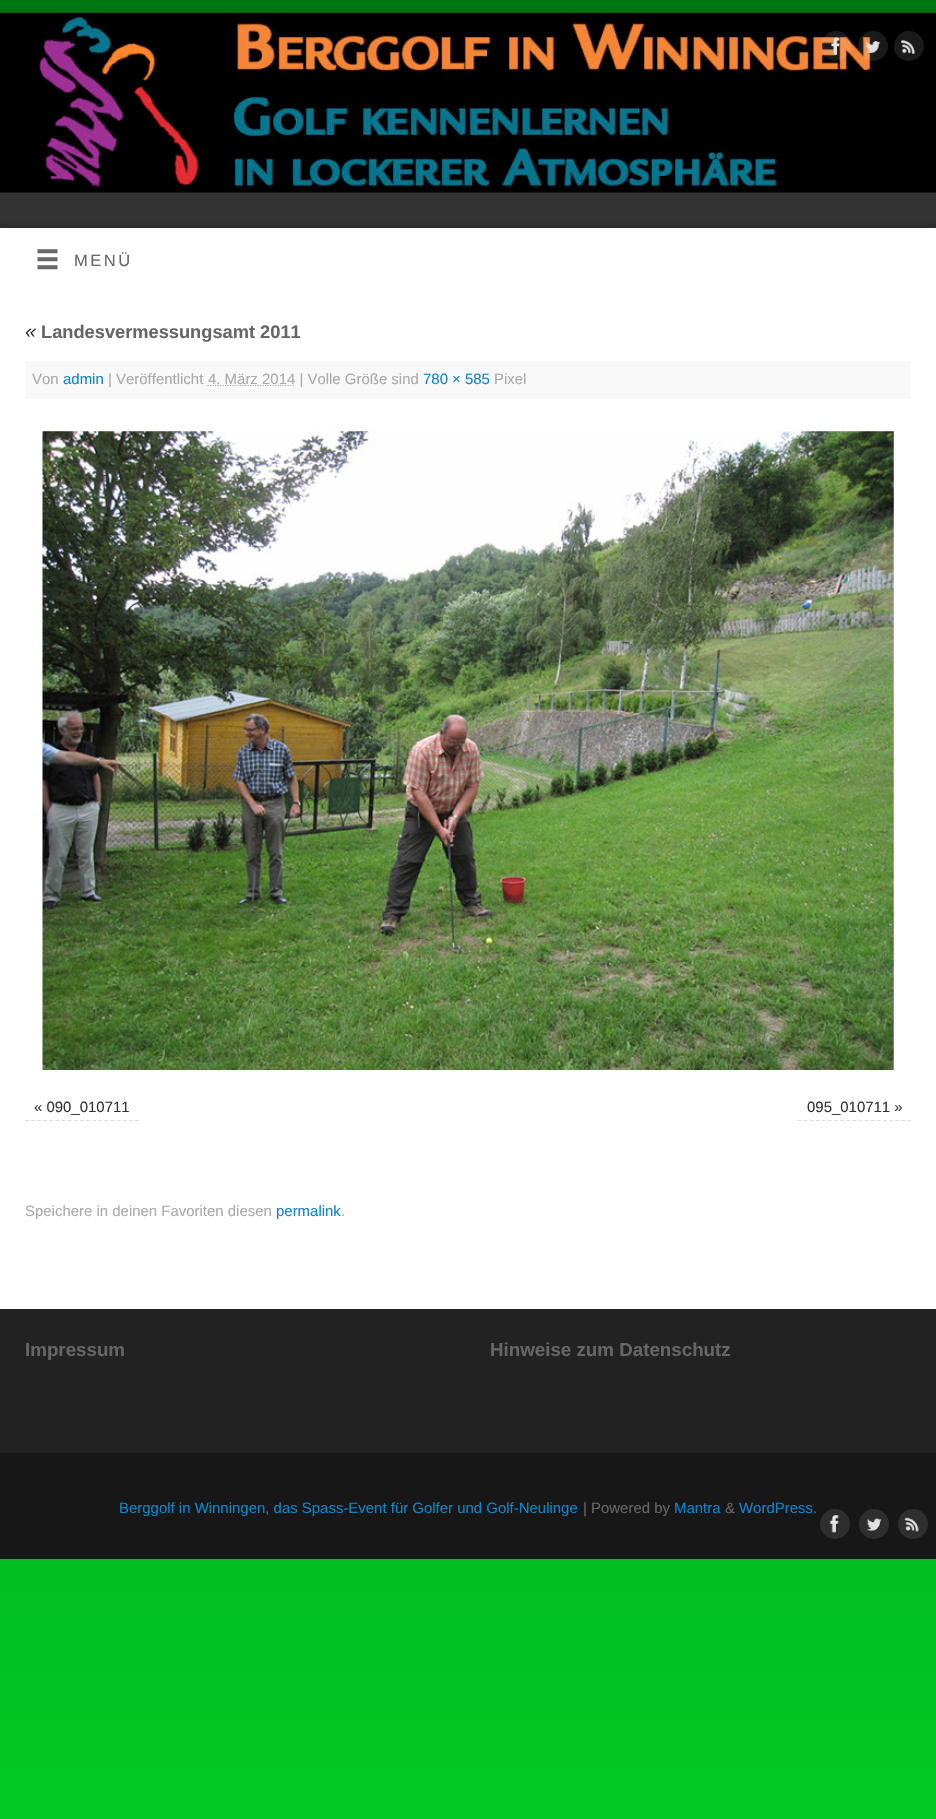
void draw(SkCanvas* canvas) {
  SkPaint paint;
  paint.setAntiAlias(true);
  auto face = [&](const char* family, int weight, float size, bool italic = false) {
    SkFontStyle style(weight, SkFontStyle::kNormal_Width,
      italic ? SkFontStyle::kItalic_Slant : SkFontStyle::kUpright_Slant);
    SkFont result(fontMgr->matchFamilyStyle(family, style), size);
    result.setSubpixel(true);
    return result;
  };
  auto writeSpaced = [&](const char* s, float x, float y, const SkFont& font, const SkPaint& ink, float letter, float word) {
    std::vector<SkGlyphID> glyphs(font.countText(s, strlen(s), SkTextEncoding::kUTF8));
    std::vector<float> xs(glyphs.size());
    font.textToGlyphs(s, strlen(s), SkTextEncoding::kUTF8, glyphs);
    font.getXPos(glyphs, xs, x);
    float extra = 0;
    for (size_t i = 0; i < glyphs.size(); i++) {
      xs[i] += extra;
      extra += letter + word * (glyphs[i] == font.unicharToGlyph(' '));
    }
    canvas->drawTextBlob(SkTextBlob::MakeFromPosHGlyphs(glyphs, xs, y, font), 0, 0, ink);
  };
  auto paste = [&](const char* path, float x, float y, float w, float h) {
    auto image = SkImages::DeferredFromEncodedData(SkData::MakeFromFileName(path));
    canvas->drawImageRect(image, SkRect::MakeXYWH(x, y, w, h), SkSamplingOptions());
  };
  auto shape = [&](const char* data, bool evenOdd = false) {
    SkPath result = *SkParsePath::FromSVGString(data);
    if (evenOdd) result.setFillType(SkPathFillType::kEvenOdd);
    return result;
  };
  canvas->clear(0xffffffff);
  paste("img/1.png", 0, 0, 936, 1819);
  paint.setColor(0xff333333);
  canvas->drawRect(SkRect::MakeXYWH(0, 192, 936, 36), paint);
  paste("img/2.png", 0, 12, 936, 181);
  paint.setColor(0x1affffff);
  canvas->drawCircle(836, 46, 15, paint);
  paste("img/3.png", 831, 37, 10, 19);
  canvas->drawCircle(873, 46, 15, paint);
  paste("img/4.png", 865, 41, 16, 13);
  paint.setColor(0xff1a1a1a);
  canvas->drawCircle(909, 46, 15, paint);
  paste("img/5.png", 901, 40, 14, 15);
  paint.setColor(0x80000000);
  paint.setMaskFilter(SkMaskFilter::MakeBlur(kNormal_SkBlurStyle, 3));
  canvas->drawRect(SkRect::MakeXYWH(0, 228, 936, 62), paint);
  paint.setMaskFilter(nullptr);
  paint.setColor(0xffffffff);
  canvas->drawRect(SkRect::MakeXYWH(0, 228, 936, 1081), paint);
  paste("img/6.png", 37, 249, 21, 21);
  paint.setColor(0xfff8f8f8);
  canvas->drawRect(SkRect::MakeXYWH(26, 361, 884, 38), paint);
  paint.setStroke(true);
  paint.setStrokeWidth(1.2f);
  paint.setColor(0xffaaaaaa);
  paint.setPathEffect(SkDashPathEffect::Make({{1.25f, 1.25f}}, 0));
  canvas->drawPath(shape("M207.5 385.5H295"), paint);
  paint.setPathEffect(nullptr);
  paste("img/7.png", 42, 431, 852, 639);
  canvas->save();
  canvas->clipRect(SkRect::MakeXYWH(25, 1095, 886, 26));
  paint.setColor(0xffdddddd);
  paint.setPathEffect(SkDashPathEffect::Make({{3.75f, 2.36f}}, 0));
  canvas->drawPath(shape("M25 1120.5H139"), paint);
  paint.setPathEffect(nullptr);
  paint.setPathEffect(SkDashPathEffect::Make({{3.75f, 2.36f}}, 0));
  canvas->drawPath(shape("M797.5 1120.5H911"), paint);
  paint.setPathEffect(nullptr);
  canvas->restore();
  paint.setStroke(false);
  paint.setColor(0xff222222);
  canvas->drawRect(SkRect::MakeXYWH(0, 1309, 936, 144), paint);
  paint.setColor(0xff171717);
  canvas->drawRect(SkRect::MakeXYWH(0, 1453, 936, 106), paint);
  paint.setColor(0xff2e2e2e);
  canvas->drawCircle(835, 1524, 15, paint);
  paste("img/8.png", 829, 1515, 10, 19);
  canvas->drawCircle(874, 1524, 15, paint);
  paste("img/9.png", 867, 1518, 15, 14);
  canvas->drawCircle(913, 1524, 15, paint);
  paste("img/10.png", 904, 1517, 15, 16);
  auto f0 = face("Liberation Sans", 400, 16.5f);
  paint.setColor(0xff666666);
  writeSpaced("MENÜ", 74, 266, f0, paint, 2.5f, 0);
  auto f1 = face("Liberation Sans", 400, 20, true);
  paint.setColor(0xff333333);
  canvas->drawString("«", 25, 338, f1, paint);
  auto f2 = face("Liberation Sans", 700, 18.25f);
  paint.setColor(0xff666666);
  canvas->drawString("Landesvermessungsamt 2011", 41, 338, f2, paint);
  auto f3 = face("Liberation Sans", 400, 14.95f);
  paint.setColor(0xffaaaaaa);
  canvas->drawString("Von", 32, 384, f3, paint);
  paint.setColor(0xff0d85cc);
  canvas->drawString("admin", 63, 384, f3, paint);
  paint.setColor(0xffaaaaaa);
  canvas->drawString("| Veröffentlicht", 108, 384, f3, paint);
  canvas->drawString("4. März 2014 | Volle Größe sind", 208, 384, f3, paint);
  paint.setColor(0xff0d85cc);
  canvas->drawString("780 × 585", 423, 384, f3, paint);
  paint.setColor(0xffaaaaaa);
  canvas->drawString("Pixel", 494, 384, f3, paint);
  paint.setColor(0xff333333);
  canvas->drawString("« 090_010711", 34, 1112, f3, paint);
  canvas->drawString("095_010711 »", 807, 1112, f3, paint);
  paint.setColor(0xffaaaaaa);
  canvas->drawString("Speichere in deinen Favoriten diesen", 25, 1216, f3, paint);
  paint.setColor(0xff0d85cc);
  canvas->drawString("permalink", 276, 1216, f3, paint);
  paint.setColor(0xffaaaaaa);
  canvas->drawString(".", 341, 1216, f3, paint);
  auto f4 = face("Liberation Sans", 700, 18.75f);
  paint.setColor(0xff666666);
  canvas->drawString("Impressum", 25, 1356, f4, paint);
  canvas->drawString("Hinweise zum Datenschutz", 490, 1356, f4, paint);
  paint.setColor(0xff0d85cc);
  canvas->drawString("Berggolf in Winningen, das Spass-Event für Golfer und Golf-Neulinge", 119, 1513, f3, paint);
  paint.setColor(0xff666666);
  canvas->drawString("| Powered by", 583, 1513, f3, paint);
  paint.setColor(0xff0d85cc);
  canvas->drawString("Mantra", 674, 1513, f3, paint);
  paint.setColor(0xff666666);
  canvas->drawString("&", 725, 1513, f3, paint);
  paint.setColor(0xff0d85cc);
  canvas->drawString("WordPress.", 739, 1513, f3, paint);
}
